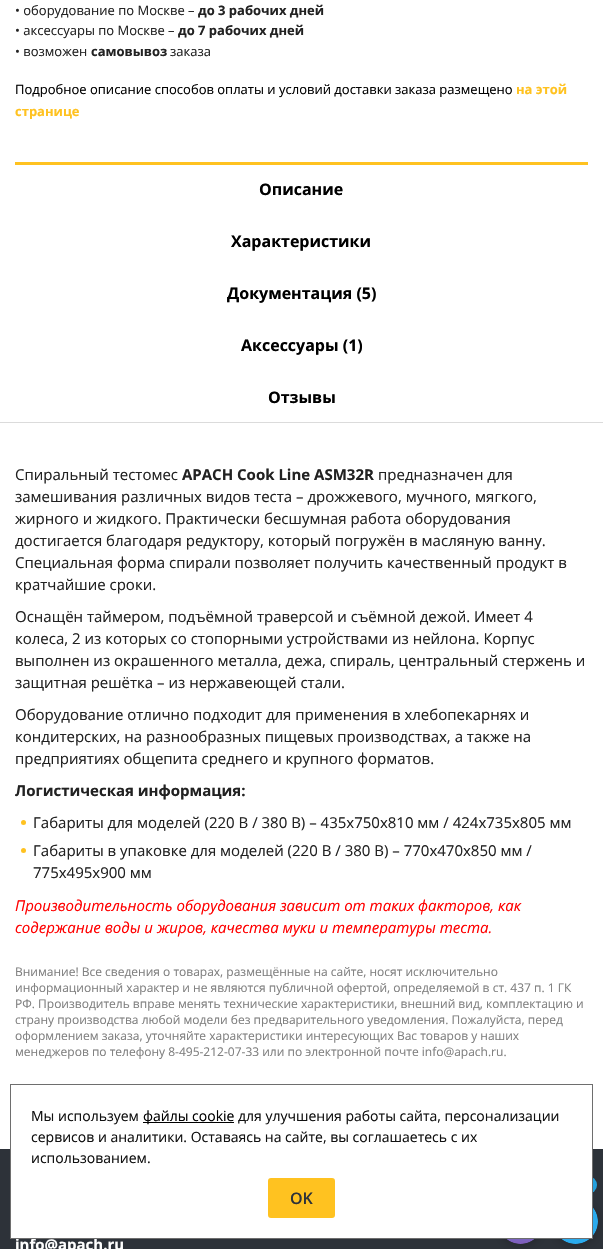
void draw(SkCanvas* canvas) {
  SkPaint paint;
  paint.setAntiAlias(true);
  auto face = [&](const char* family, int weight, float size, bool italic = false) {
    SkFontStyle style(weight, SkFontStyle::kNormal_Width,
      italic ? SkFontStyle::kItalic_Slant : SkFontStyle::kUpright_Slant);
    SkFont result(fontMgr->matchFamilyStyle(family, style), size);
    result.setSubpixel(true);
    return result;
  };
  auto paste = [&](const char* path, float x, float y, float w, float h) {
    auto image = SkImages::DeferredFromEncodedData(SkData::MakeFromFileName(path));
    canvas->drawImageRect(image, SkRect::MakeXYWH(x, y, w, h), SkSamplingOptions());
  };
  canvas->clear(0xffffffff);
  paint.setColor(0xffdbdbdb);
  canvas->drawRect(SkRect::MakeXYWH(0, 422, 603, 1), paint);
  paint.setColor(0xffffc220);
  canvas->drawRect(SkRect::MakeXYWH(15, 162, 573, 3), paint);
  canvas->drawCircle(23.5f, 822.5f, 2.5f, paint);
  canvas->drawCircle(23.5f, 850.5f, 2.5f, paint);
  paint.setColor(0xff2d3239);
  canvas->drawRect(SkRect::MakeXYWH(0, 1149, 603, 100), paint);
  paint.setColor(0xff24a1de);
  canvas->drawRoundRect(SkRect::MakeXYWH(499, 1176, 98, 18), 9, 9, paint);
  paint.setColor(0x33000000);
  paint.setMaskFilter(SkMaskFilter::MakeBlur(kNormal_SkBlurStyle, 5));
  canvas->drawRoundRect(SkRect::MakeXYWH(498, 1201, 45, 45), 22.5f, 22.5f, paint);
  paint.setMaskFilter(nullptr);
  paint.setMaskFilter(SkMaskFilter::MakeBlur(kNormal_SkBlurStyle, 5));
  canvas->drawRoundRect(SkRect::MakeXYWH(553, 1201, 45, 45), 22.5f, 22.5f, paint);
  paint.setMaskFilter(nullptr);
  paste("img/2.png", 562, 1207, 36, 37);
  paint.setColor(0xffffffff);
  canvas->drawRect(SkRect::MakeXYWH(11, 1149, 581, 89), paint);
  paste("img/1.png", 507, 1239, 27, 5);
  auto f0 = face("Open Sans", 400, 13);
  paint.setColor(0xff222222);
  canvas->drawString("• оборудование по Москве –", 15, 15, f0, paint);
  auto f1 = face("Open Sans", 700, 13);
  canvas->drawString("до 3 рабочих дней", 198, 15, f1, paint);
  canvas->drawString("• аксессуары по Москве –", 15, 35, f0, paint);
  canvas->drawString("до 7 рабочих дней", 178, 35, f1, paint);
  canvas->drawString("• возможен", 15, 56, f0, paint);
  canvas->drawString("самовывоз", 91, 56, f1, paint);
  canvas->drawString("заказа", 170, 56, f0, paint);
  paint.setColor(0xff000000);
  canvas->drawString("Подробное описание способов оплаты и условий доставки заказа размещено", 15, 94, f0, paint);
  paint.setColor(0xffffc220);
  canvas->drawString("на этой", 516, 94, f1, paint);
  canvas->drawString("странице", 15, 116, f1, paint);
  auto f2 = face("Open Sans", 700, 16);
  paint.setColor(0xff000000);
  {
    const struct { const char* s; float x, y; } items[] = {
      {"Описание", 259, 195},
      {"Характеристики", 231, 247},
      {"Документация (5)", 227, 299},
      {"Аксессуары (1)", 241, 351},
      {"Отзывы", 268, 403},
    };
    for (auto [s, x, y] : items) {
      canvas->drawString(s, x, y, f2, paint);
    }
  }
  auto f3 = face("Open Sans", 400, 15);
  paint.setColor(0xff222222);
  canvas->drawString("Спиральный тестомес", 15, 480, f3, paint);
  auto f4 = face("Open Sans", 700, 15);
  canvas->drawString("APACH Cook Line ASM32R", 182, 480, f4, paint);
  {
    const struct { const char* s; float x, y; } items[] = {
      {"предназначен для", 378, 480},
      {"замешивания различных видов теста – дрожжевого, мучного, мягкого,", 15, 502},
      {"жирного и жидкого. Практически бесшумная работа оборудования", 15, 524},
      {"достигается благодаря редуктору, который погружён в масляную ванну.", 15, 546},
      {"Специальная форма спирали позволяет получить качественный продукт в", 15, 568},
      {"кратчайшие сроки.", 15, 590},
      {"Оснащён таймером, подъёмной траверсой и съёмной дежой. Имеет 4", 15, 622},
      {"колеса, 2 из которых со стопорными устройствами из нейлона. Корпус", 15, 644},
      {"выполнен из окрашенного металла, дежа, спираль, центральный стержень и", 15, 666},
      {"защитная решётка – из нержавеющей стали.", 15, 688},
      {"Оборудование отлично подходит для применения в хлебопекарнях и", 15, 720},
      {"кондитерских, на разнообразных пищевых производствах, а также на", 15, 742},
      {"предприятиях общепита среднего и крупного форматов.", 15, 764},
    };
    for (auto [s, x, y] : items) {
      canvas->drawString(s, x, y, f3, paint);
    }
  }
  canvas->drawString("Логистическая информация:", 15, 796, f4, paint);
  {
    const struct { const char* s; float x, y; } items[] = {
      {"Габариты для моделей (220 В / 380 В) – 435х750х810 мм / 424х735х805 мм", 33, 828},
      {"Габариты в упаковке для моделей (220 В / 380 В) – 770х470х850 мм /", 33, 856},
      {"775х495х900 мм", 33, 878},
    };
    for (auto [s, x, y] : items) {
      canvas->drawString(s, x, y, f3, paint);
    }
  }
  auto f5 = face("Open Sans", 400, 15, true);
  paint.setColor(0xffff0000);
  canvas->drawString("Производительность оборудования зависит от таких факторов, как", 15, 911, f5, paint);
  canvas->drawString("содержание воды и жиров, качества муки и температуры теста.", 15, 933, f5, paint);
  auto f6 = face("Open Sans", 400, 12);
  paint.setColor(0xff808080);
  {
    const struct { const char* s; float x, y; } items[] = {
      {"Внимание! Все сведения о товарах, размещённые на сайте, носят исключительно", 15, 976},
      {"информационный характер и не являются публичной офертой, определяемой в ст. 437 п. 1 ГК", 15, 992},
      {"РФ. Производитель вправе менять технические характеристики, внешний вид, комплектацию и", 15, 1008},
      {"страну производства любой модели без предварительного уведомления. Пожалуйста, перед", 15, 1024},
      {"оформлением заказа, уточняйте характеристики интересующих Вас товаров у наших", 15, 1040},
      {"менеджеров по телефону 8-495-212-07-33 или по электронной почте info@apach.ru.", 15, 1056},
    };
    for (auto [s, x, y] : items) {
      canvas->drawString(s, x, y, f6, paint);
    }
  }
  paint.setColor(0xffffffff);
  canvas->drawString("info@apach.ru", 15, 1250, f4, paint);
  paint.setStroke(true);
  paint.setStrokeWidth(1);
  paint.setColor(0xff6e6e6e);
  canvas->drawRect(SkRect::MakeXYWH(10.5f, 1084.5f, 582, 154), paint);
  paint.setStroke(false);
  paint.setColor(0xffffc220);
  canvas->drawRoundRect(SkRect::MakeXYWH(269, 1179, 65, 38), 2, 2, paint);
  paint.setStroke(true);
  paint.setStrokeWidth(2);
  canvas->drawRoundRect(SkRect::MakeXYWH(269, 1179, 65, 38), 2, 2, paint);
  auto f7 = face("Open Sans", 600, 16);
  paint.setStroke(false);
  paint.setColor(0xff2d3239);
  canvas->drawString("OK", 290, 1204, f7, paint);
  auto f8 = face("Open Sans", 400, 14);
  paint.setColor(0xff111111);
  {
    const struct { const char* s; float x, y; } items[] = {
      {"использованием.", 31, 1163},
      {"сервисов и аналитики. Оставаясь на сайте, вы соглашаетесь с их", 31, 1142},
      {"для улучшения работы сайта, персонализации", 238, 1121},
    };
    for (auto [s, x, y] : items) {
      canvas->drawString(s, x, y, f8, paint);
    }
  }
  paint.setColor(0xff000000);
  canvas->drawRect(SkRect::MakeXYWH(143, 1122, 91, 1), paint);
  canvas->drawString("файлы cookie", 143, 1121, f8, paint);
  paint.setColor(0xff111111);
  canvas->drawString("Мы используем", 31, 1121, f8, paint);
}
